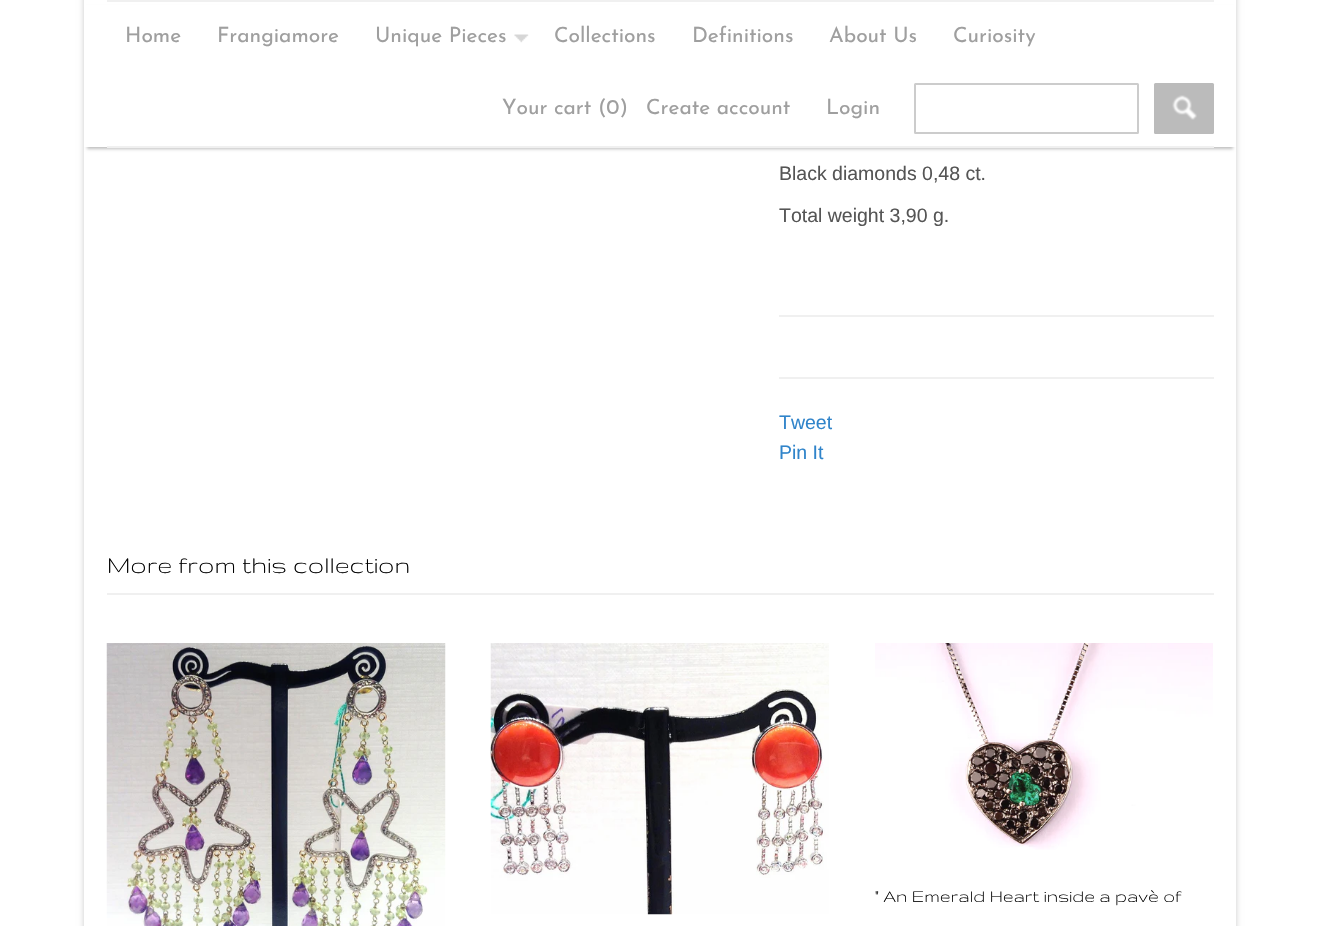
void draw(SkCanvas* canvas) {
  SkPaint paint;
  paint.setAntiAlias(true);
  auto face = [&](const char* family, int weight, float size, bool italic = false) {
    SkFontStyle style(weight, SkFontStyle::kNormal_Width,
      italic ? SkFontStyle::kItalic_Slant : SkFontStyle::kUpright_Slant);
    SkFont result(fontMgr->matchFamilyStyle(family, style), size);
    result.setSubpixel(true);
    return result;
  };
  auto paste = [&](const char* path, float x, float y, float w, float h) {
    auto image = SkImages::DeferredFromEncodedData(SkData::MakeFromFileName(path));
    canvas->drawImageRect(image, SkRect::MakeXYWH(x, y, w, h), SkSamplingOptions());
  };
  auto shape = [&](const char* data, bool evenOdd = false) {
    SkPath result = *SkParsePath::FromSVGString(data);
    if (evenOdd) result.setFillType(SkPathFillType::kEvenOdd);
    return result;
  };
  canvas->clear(0xffffffff);
  canvas->save();
  canvas->clipPath(shape("M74 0H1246V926H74ZM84-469H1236V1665H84Z", true), true);
  paint.setColor(0x33000000);
  paint.setMaskFilter(SkMaskFilter::MakeBlur(kNormal_SkBlurStyle, 3));
  canvas->drawRect(SkRect::MakeXYWH(84, -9, 1152, 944), paint);
  paint.setMaskFilter(nullptr);
  canvas->restore();
  paint.setColor(0x40000000);
  paint.setMaskFilter(SkMaskFilter::MakeBlur(kNormal_SkBlurStyle, 1.5f));
  canvas->drawRect(SkRect::MakeXYWH(87, 8, 1146, 141), paint);
  paint.setMaskFilter(nullptr);
  {
    const struct { float x, y, w, h; SkColor color; } items[] = {
      {84, 5, 1152, 142, 0xffffffff},
      {107, 0, 1107, 2, 0xfff0f0f0},
      {107, 146, 1107, 2, 0xfff0f0f0},
    };
    for (auto [x, y, w, h, color] : items) {
      paint.setColor(color);
      canvas->drawRect(SkRect::MakeXYWH(x, y, w, h), paint);
    }
  }
  paste("img/1.png", 514, 34, 15, 9);
  paint.setStroke(true);
  paint.setStrokeWidth(2);
  paint.setColor(0xffcccccc);
  canvas->drawRoundRect(SkRect::MakeXYWH(915, 84, 223, 49), 0.5f, 0.5f, paint);
  paint.setStroke(false);
  paint.setColor(0xffbbbbbb);
  canvas->drawRoundRect(SkRect::MakeXYWH(1154, 83, 60, 51), 1.5f, 1.5f, paint);
  paste("img/2.png", 1172, 95, 25, 25);
  {
    const struct { float x, y, w, h; SkColor color; } items[] = {
      {779, 315, 435, 2, 0xfff0f0f0},
      {779, 377, 435, 2, 0xfff0f0f0},
      {107, 593, 1107, 2, 0xfff0f0f0},
    };
    for (auto [x, y, w, h, color] : items) {
      paint.setColor(color);
      canvas->drawRect(SkRect::MakeXYWH(x, y, w, h), paint);
    }
  }
  paste("img/3.png", 106, 643, 340, 283);
  paste("img/4.png", 490, 643, 339, 272);
  paste("img/5.png", 875, 643, 338, 207);
  auto f0 = face("Josefin Sans", 400, 21);
  paint.setColor(0xff9f9f9f);
  {
    const struct { const char* s; float x, y; } items[] = {
      {"Home", 125, 42},
      {"Frangiamore", 217, 42},
      {"Unique Pieces", 375, 42},
      {"Collections", 554, 42},
      {"Definitions", 692, 42},
      {"About Us", 829, 42},
      {"Curiosity", 953, 42},
      {"Your cart (0)", 502, 114},
      {"Create account", 646, 114},
      {"Login", 826, 114},
    };
    for (auto [s, x, y] : items) {
      canvas->drawString(s, x, y, f0, paint);
    }
  }
  auto f1 = face("Liberation Sans", 400, 19.5f);
  paint.setColor(0xff555555);
  canvas->drawString("Black diamonds 0,48 ct.", 779, 180, f1, paint);
  canvas->drawString("Total weight 3,90 g.", 779, 222, f1, paint);
  paint.setColor(0xff3084ca);
  canvas->drawString("Tweet", 779, 429, f1, paint);
  canvas->drawString("Pin It", 779, 459, f1, paint);
  auto f2 = face("Gruppo", 400, 27);
  paint.setColor(0xff000000);
  canvas->drawString("More from this collection", 107, 573, f2, paint);
  auto f3 = face("Gruppo", 400, 19.5f);
  canvas->drawString("\" An Emerald Heart inside a pavè of", 875, 902, f3, paint);
}
